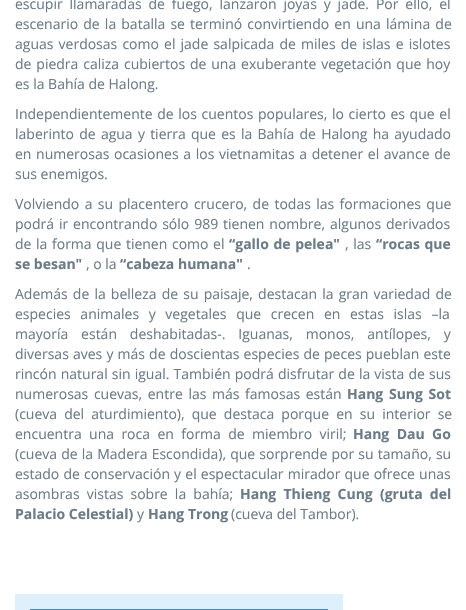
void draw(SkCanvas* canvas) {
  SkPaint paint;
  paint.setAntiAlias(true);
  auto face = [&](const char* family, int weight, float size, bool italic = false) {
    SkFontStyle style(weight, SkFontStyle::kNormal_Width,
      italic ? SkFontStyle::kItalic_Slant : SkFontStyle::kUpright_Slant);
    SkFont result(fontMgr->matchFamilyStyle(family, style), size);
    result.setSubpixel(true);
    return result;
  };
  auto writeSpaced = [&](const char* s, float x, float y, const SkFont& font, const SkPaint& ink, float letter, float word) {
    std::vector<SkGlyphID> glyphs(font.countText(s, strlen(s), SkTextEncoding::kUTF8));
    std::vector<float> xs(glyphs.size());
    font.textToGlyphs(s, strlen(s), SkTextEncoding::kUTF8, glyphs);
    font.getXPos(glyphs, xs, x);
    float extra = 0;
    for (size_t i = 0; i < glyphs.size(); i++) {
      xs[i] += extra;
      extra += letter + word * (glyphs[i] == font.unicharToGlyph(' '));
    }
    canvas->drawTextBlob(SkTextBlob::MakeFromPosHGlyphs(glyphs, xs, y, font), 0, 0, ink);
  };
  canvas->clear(0xffffffff);
  paint.setColor(0xffdef0fb);
  canvas->drawRect(SkRect::MakeXYWH(15, 594, 328, 16), paint);
  paint.setStroke(true);
  paint.setStrokeWidth(1);
  paint.setColor(0xff458bd8);
  canvas->drawRect(SkRect::MakeXYWH(30.5f, 609.5f, 297, 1), paint);
  auto f0 = face("Open Sans", 400, 14);
  paint.setStroke(false);
  paint.setColor(0xff6a7c88);
  writeSpaced("escupir llamaradas de fuego, lanzaron joyas y jade. Por ello, el", 15, 9, f0, paint, 0, 3.25f);
  writeSpaced("escenario de la batalla se terminó convirtiendo en una lámina de", 15, 29, f0, paint, 0, 1.5f);
  writeSpaced("aguas verdosas como el jade salpicada de miles de islas e islotes", 15, 49, f0, paint, 0, 1.5f);
  writeSpaced("de piedra caliza cubiertos de una exuberante vegetación que hoy", 15, 69, f0, paint, 0, 1.25f);
  canvas->drawString("es la Bahía de Halong.", 15, 89, f0, paint);
  writeSpaced("Independientemente de los cuentos populares, lo cierto es que el", 15, 119, f0, paint, 0, 1);
  writeSpaced("laberinto de agua y tierra que es la Bahía de Halong ha ayudado", 15, 139, f0, paint, 0, 1.6f);
  writeSpaced("en numerosas ocasiones a los vietnamitas a detener el avance de", 15, 159, f0, paint, 0, 1);
  canvas->drawString("sus enemigos.", 15, 179, f0, paint);
  writeSpaced("Volviendo a su placentero crucero, de todas las formaciones que", 15, 209, f0, paint, 0, 1.75f);
  writeSpaced("podrá ir encontrando sólo 989 tienen nombre, algunos derivados", 15, 229, f0, paint, 0, 1.25f);
  writeSpaced("de la forma que tienen como el", 15, 249, f0, paint, 0, 1);
  auto f1 = face("Open Sans", 700, 14);
  writeSpaced("“gallo de pelea\"", 229, 249, f1, paint, 0, 1);
  writeSpaced(", las", 345, 249, f0, paint, 0, 1);
  writeSpaced("“rocas que", 376, 249, f1, paint, 0, 1);
  canvas->drawString("se besan\"", 15, 269, f1, paint);
  canvas->drawString(", o la", 86, 269, f0, paint);
  canvas->drawString("“cabeza humana\"", 120, 269, f1, paint);
  canvas->drawString(".", 247, 269, f0, paint);
  writeSpaced("Además de la belleza de su paisaje, destacan la gran variedad de", 15, 299, f0, paint, 0, 1.5f);
  writeSpaced("especies animales y vegetales que crecen en estas islas –la", 15, 319, f0, paint, 0, 6);
  writeSpaced("mayoría están deshabitadas-. Iguanas, monos, antílopes, y", 15, 339, f0, paint, 0, 9.25f);
  writeSpaced("diversas aves y más de doscientas especies de peces pueblan este", 15, 359, f0, paint, 0, 0.5f);
  writeSpaced("rincón natural sin igual. También podrá disfrutar de la vista de sus", 15, 379, f0, paint, 0, 0.5f);
  writeSpaced("numerosas cuevas, entre las más famosas están", 15, 399, f0, paint, 0, 2);
  writeSpaced("Hang Sung Sot", 347, 399, f1, paint, 0, 2);
  writeSpaced("(cueva del aturdimiento), que destaca porque en su interior se", 15, 419, f0, paint, 0, 3.5f);
  writeSpaced("encuentra una roca en forma de miembro viril;", 15, 439, f0, paint, 0, 3.75f);
  writeSpaced("Hang Dau Go", 353, 439, f1, paint, 0, 3.75f);
  writeSpaced("(cueva de la Madera Escondida), que sorprende por su tamaño, su", 15, 459, f0, paint, 0, 0.5f);
  writeSpaced("estado de conservación y el espectacular mirador que ofrece unas", 15, 479, f0, paint, 0, 0.5f);
  writeSpaced("asombras vistas sobre la bahía;", 15, 499, f0, paint, 0, 3.5f);
  writeSpaced("Hang Thieng Cung (gruta del", 240, 499, f1, paint, 0, 3.5f);
  canvas->drawString("Palacio Celestial)", 15, 519, f1, paint);
  canvas->drawString("y", 137, 519, f0, paint);
  canvas->drawString("Hang Trong", 148, 519, f1, paint);
  canvas->drawString("(cueva del Tambor).", 231, 519, f0, paint);
}
